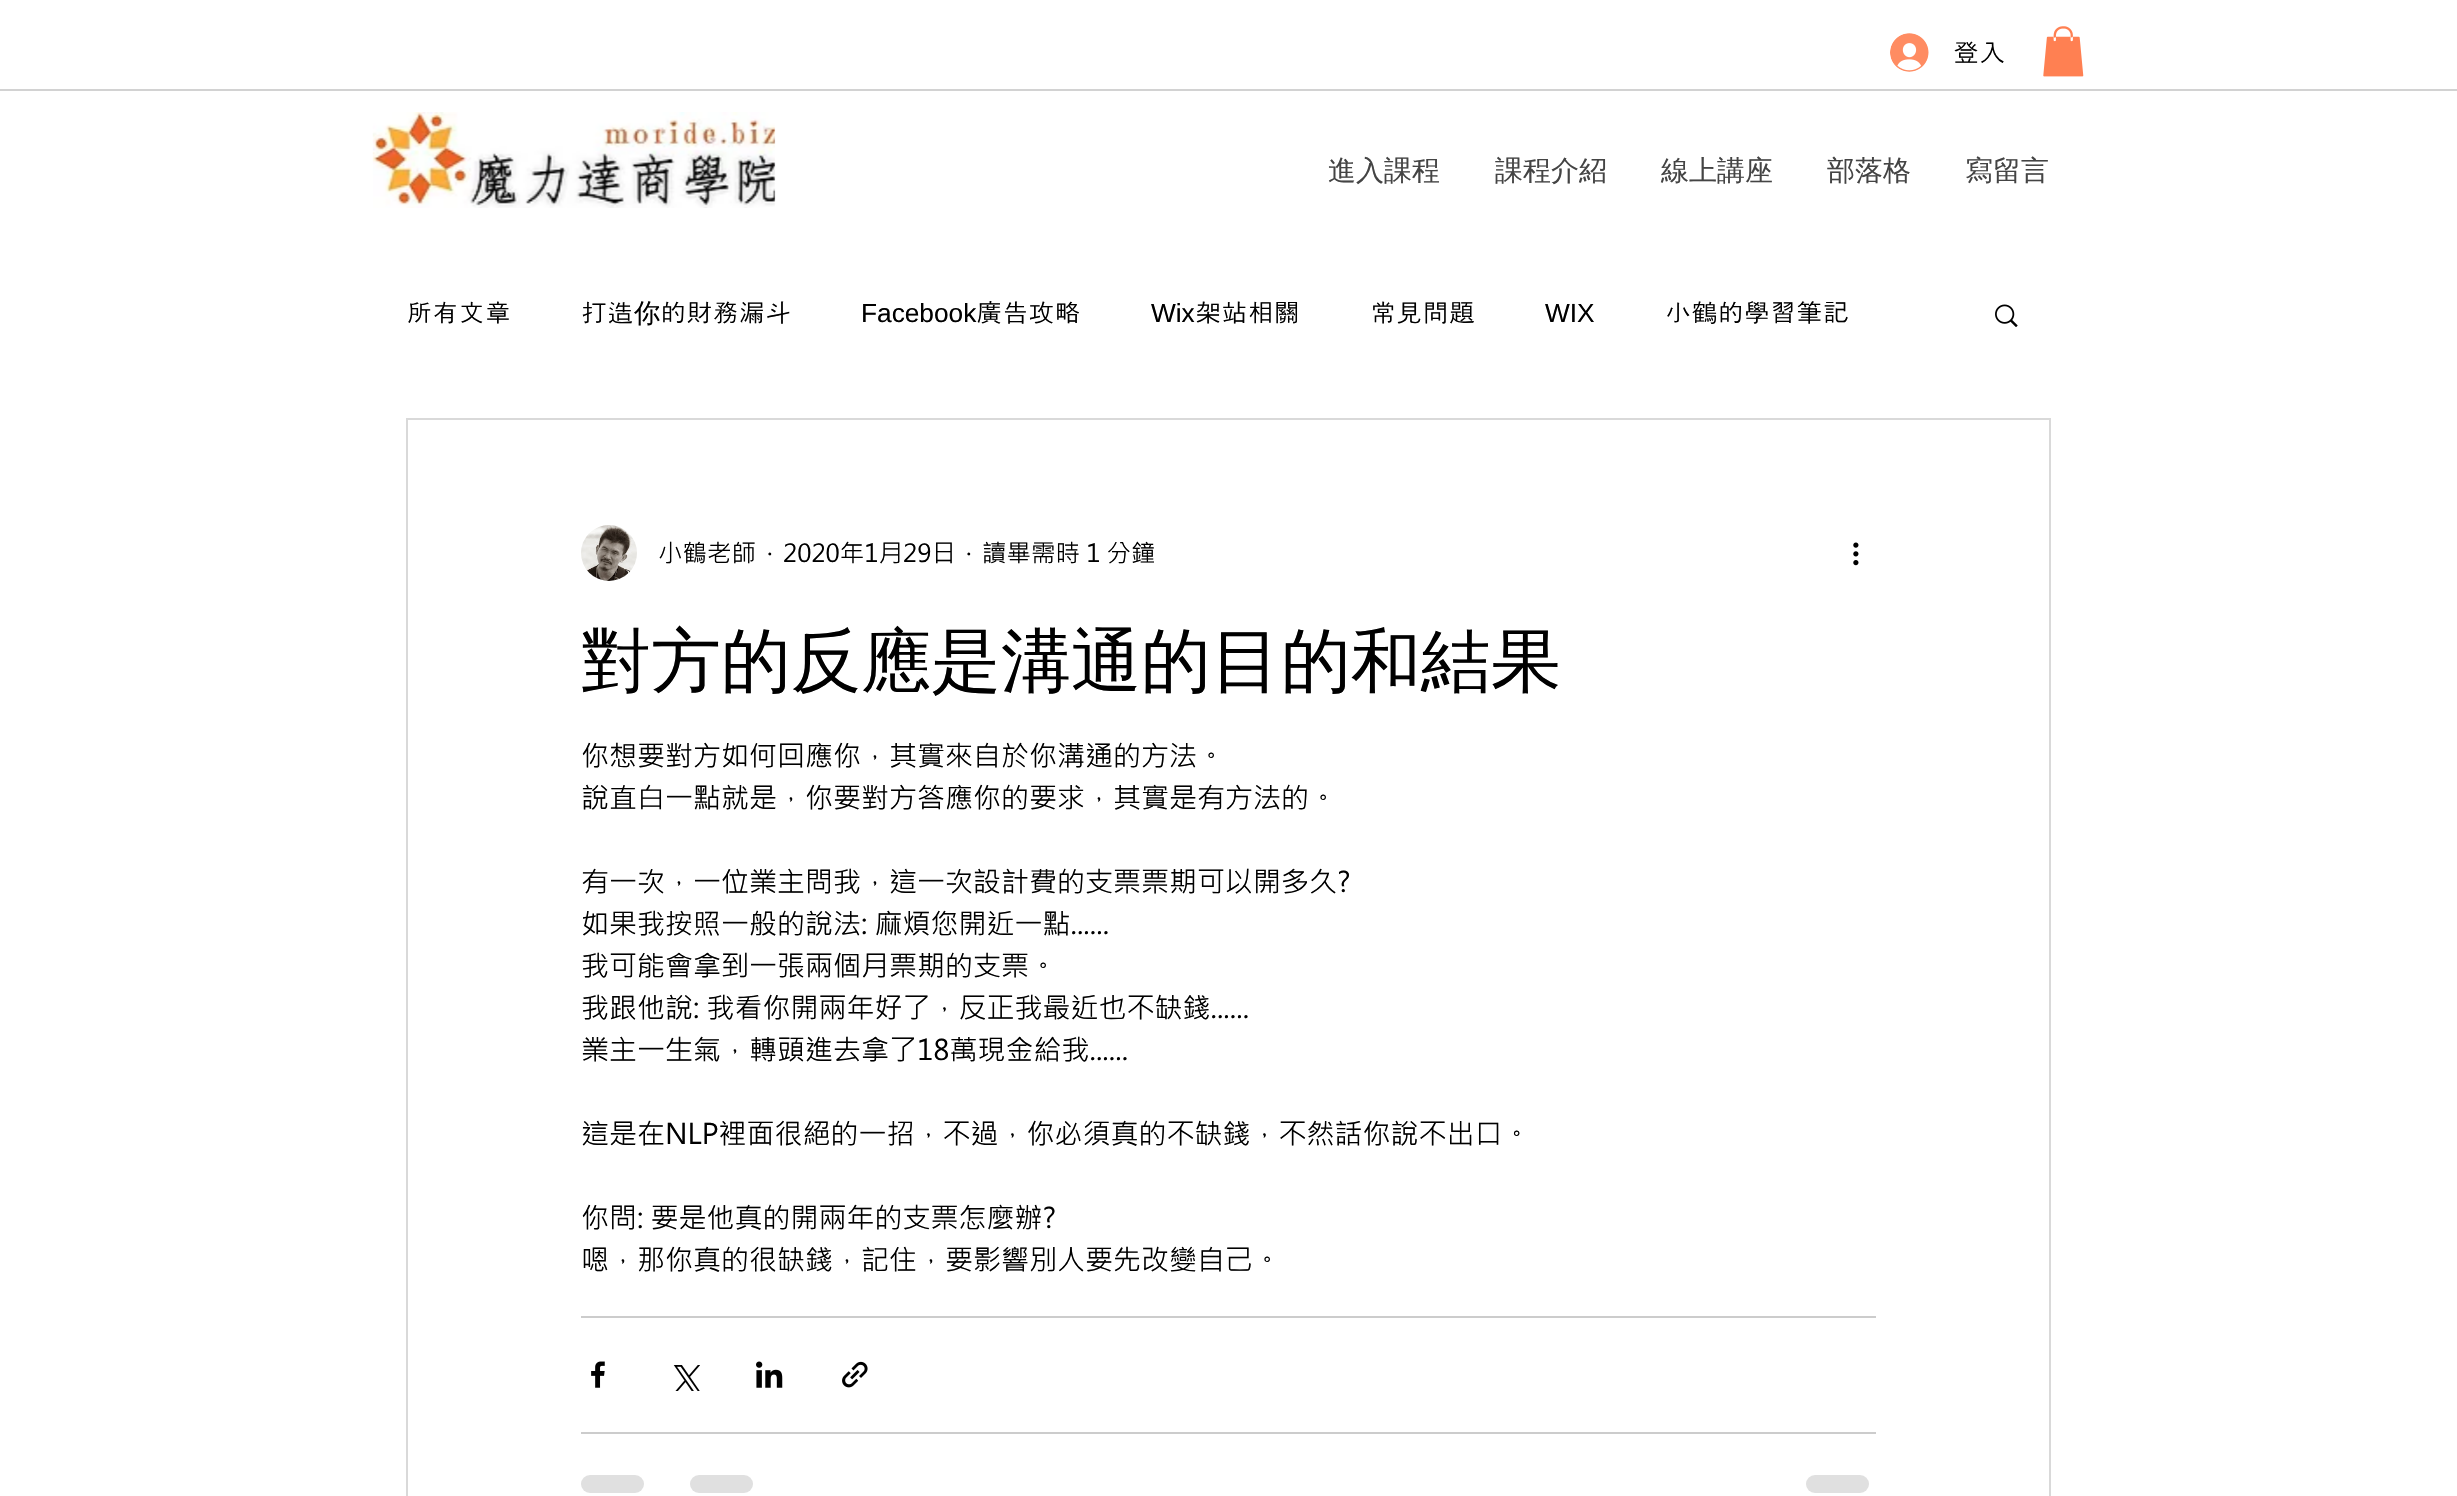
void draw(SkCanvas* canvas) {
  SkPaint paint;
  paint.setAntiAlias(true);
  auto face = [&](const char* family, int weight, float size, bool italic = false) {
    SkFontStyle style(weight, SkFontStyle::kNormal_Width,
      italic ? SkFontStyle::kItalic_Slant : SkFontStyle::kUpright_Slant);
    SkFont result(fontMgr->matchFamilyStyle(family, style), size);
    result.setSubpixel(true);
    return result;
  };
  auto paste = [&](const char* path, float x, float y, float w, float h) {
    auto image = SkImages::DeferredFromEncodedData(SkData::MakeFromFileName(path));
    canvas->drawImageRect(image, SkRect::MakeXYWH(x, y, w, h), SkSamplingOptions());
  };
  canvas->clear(0xffffffff);
  paste("img/1.png", 1890, 33, 39, 39);
  paste("img/2.png", 2043, 26, 41, 51);
  paint.setColor(0xffd2d2d2);
  canvas->drawRect(SkRect::MakeXYWH(0, 89, 2457, 2), paint);
  paste("img/3.png", 372, 112, 404, 96);
  paste("img/4.png", 1995, 304, 23, 23);
  paint.setStroke(true);
  paint.setStrokeWidth(2);
  paint.setColor(0xffd9d9d9);
  canvas->drawRect(SkRect::MakeXYWH(407, 419, 1643, 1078), paint);
  paste("img/5.png", 581, 525, 56, 56);
  paste("img/6.png", 1853, 542, 6, 24);
  paint.setStroke(false);
  paint.setColor(0xffcccccc);
  canvas->drawRect(SkRect::MakeXYWH(581, 1316, 1295, 2), paint);
  paste("img/7.png", 591, 1361, 14, 27);
  paste("img/8.png", 673, 1365, 27, 26);
  paste("img/9.png", 756, 1361, 27, 27);
  paste("img/10.png", 842, 1361, 26, 27);
  canvas->drawRect(SkRect::MakeXYWH(581, 1432, 1295, 2), paint);
  paint.setColor(0xffe0e0e0);
  canvas->drawRoundRect(SkRect::MakeXYWH(581, 1475, 63, 18), 9, 9, paint);
  canvas->drawRoundRect(SkRect::MakeXYWH(690, 1475, 63, 18), 9, 9, paint);
  canvas->drawRoundRect(SkRect::MakeXYWH(1806, 1475, 63, 18), 9, 9, paint);
  auto f0 = face("Dotum", 400, 26.25f);
  paint.setColor(0xff000000);
  canvas->drawString("登入", 1953, 62, f0, paint);
  auto f1 = face("WenQuanYi Zen Hei", 500, 28);
  paint.setColor(0xff444444);
  {
    const struct { const char* s; float x, y; } items[] = {
      {"進入課程", 1328, 180},
      {"課程介紹", 1495, 180},
      {"線上講座", 1661, 180},
      {"部落格", 1827, 180},
      {"寫留言", 1965, 180},
    };
    for (auto [s, x, y] : items) {
      canvas->drawString(s, x, y, f1, paint);
    }
  }
  paint.setColor(0xff000000);
  canvas->drawString("所有文章", 406, 322, f0, paint);
  canvas->drawString("打造", 581, 322, f0, paint);
  auto f2 = face("WenQuanYi Zen Hei", 500, 26.25f);
  canvas->drawString("你", 634, 322, f2, paint);
  canvas->drawString("的財務漏斗", 660, 322, f0, paint);
  auto f3 = face("Liberation Sans", 400, 26.25f);
  canvas->drawString("Facebook", 861, 322, f3, paint);
  canvas->drawString("廣告攻略", 976, 322, f0, paint);
  canvas->drawString("Wix", 1151, 322, f3, paint);
  canvas->drawString("架站相關", 1195, 322, f0, paint);
  canvas->drawString("常見問題", 1370, 322, f0, paint);
  canvas->drawString("WIX", 1545, 322, f3, paint);
  canvas->drawString("小鶴的學習筆記", 1665, 322, f0, paint);
  auto f4 = face("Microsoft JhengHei", 400, 24.5f);
  {
    const struct { const char* s; float x, y; } items[] = {
      {"小鶴老師", 658, 562},
      {"·", 767, 562},
      {"2020年1月29日", 783, 562},
      {"·", 966, 562},
      {"讀畢需時 1 分鐘", 982, 562},
    };
    for (auto [s, x, y] : items) {
      canvas->drawString(s, x, y, f4, paint);
    }
  }
  auto f5 = face("WenQuanYi Zen Hei", 500, 70);
  canvas->drawString("對方的反應是溝通的目的和結果", 581, 685, f5, paint);
  auto f6 = face("Microsoft JhengHei", 400, 28);
  {
    const struct { const char* s; float x, y; } items[] = {
      {"你想要對方如何回應你，其實來自於你溝通的方法。", 581, 766},
      {"說直白一點就是，你要對方答應你的要求，其實是有方法的。", 581, 808},
      {"有一次，一位業主問我，這一次設計費的支票票期可以開多久?", 581, 892},
      {"如果我按照一般的說法: 麻煩您開近一點......", 581, 934},
      {"我可能會拿到一張兩個月票期的支票。", 581, 976},
      {"我跟他說: 我看你開兩年好了，反正我最近也不缺錢......", 581, 1018},
      {"業主一生氣，轉頭進去拿了18萬現金給我......", 581, 1060},
      {"這是在NLP裡面很絕的一招，不過，你必須真的不缺錢，不然話你說不出口。", 581, 1144},
      {"你問: 要是他真的開兩年的支票怎麼辦?", 581, 1228},
      {"嗯，那你真的很缺錢，記住，要影響別人要先改變自己。", 581, 1270},
    };
    for (auto [s, x, y] : items) {
      canvas->drawString(s, x, y, f6, paint);
    }
  }
}
